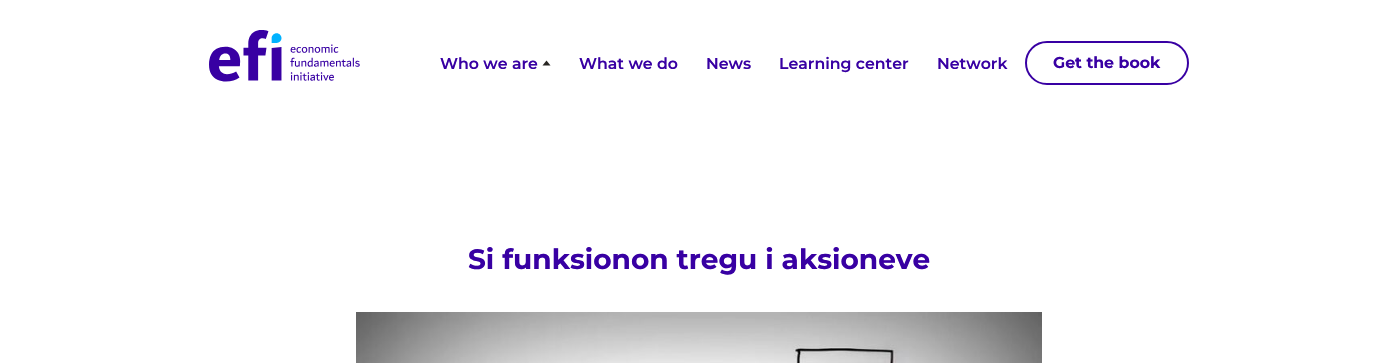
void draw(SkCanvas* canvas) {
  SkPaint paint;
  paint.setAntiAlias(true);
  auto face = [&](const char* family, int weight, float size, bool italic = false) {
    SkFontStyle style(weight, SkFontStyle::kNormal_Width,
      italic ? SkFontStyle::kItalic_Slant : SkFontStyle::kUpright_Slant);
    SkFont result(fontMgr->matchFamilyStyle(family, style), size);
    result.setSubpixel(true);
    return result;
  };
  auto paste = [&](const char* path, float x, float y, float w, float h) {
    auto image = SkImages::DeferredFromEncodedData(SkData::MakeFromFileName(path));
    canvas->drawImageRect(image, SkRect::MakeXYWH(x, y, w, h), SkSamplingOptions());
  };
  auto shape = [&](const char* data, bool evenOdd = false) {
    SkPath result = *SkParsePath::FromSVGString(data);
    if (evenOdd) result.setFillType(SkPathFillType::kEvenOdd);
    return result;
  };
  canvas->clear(0xffffffff);
  paste("img/1.png", 209, 30, 151, 52);
  paint.setColor(0xff282522);
  canvas->drawPath(shape("M546.5 60.5L550.5 65.5H542.5Z", true), paint);
  paint.setStroke(true);
  paint.setStrokeWidth(2);
  paint.setColor(0xff3800a3);
  canvas->drawRoundRect(SkRect::MakeXYWH(1026, 42, 162, 42), 21, 21, paint);
  paste("img/2.png", 356, 312, 686, 51);
  auto f0 = face("Montserrat", 600, 15.75f);
  paint.setStroke(false);
  {
    const struct { const char* s; float x, y; } items[] = {
      {"Who we are", 440, 69},
      {"What we do", 579, 69},
      {"News", 706, 69},
      {"Learning center", 779, 69},
      {"Network", 937, 69},
    };
    for (auto [s, x, y] : items) {
      canvas->drawString(s, x, y, f0, paint);
    }
  }
  auto f1 = face("Montserrat", 700, 15.75f);
  canvas->drawString("Get the book", 1053, 68, f1, paint);
  auto f2 = face("Montserrat", 700, 28);
  canvas->drawString("Si funksionon tregu i aksioneve", 468, 269, f2, paint);
}
